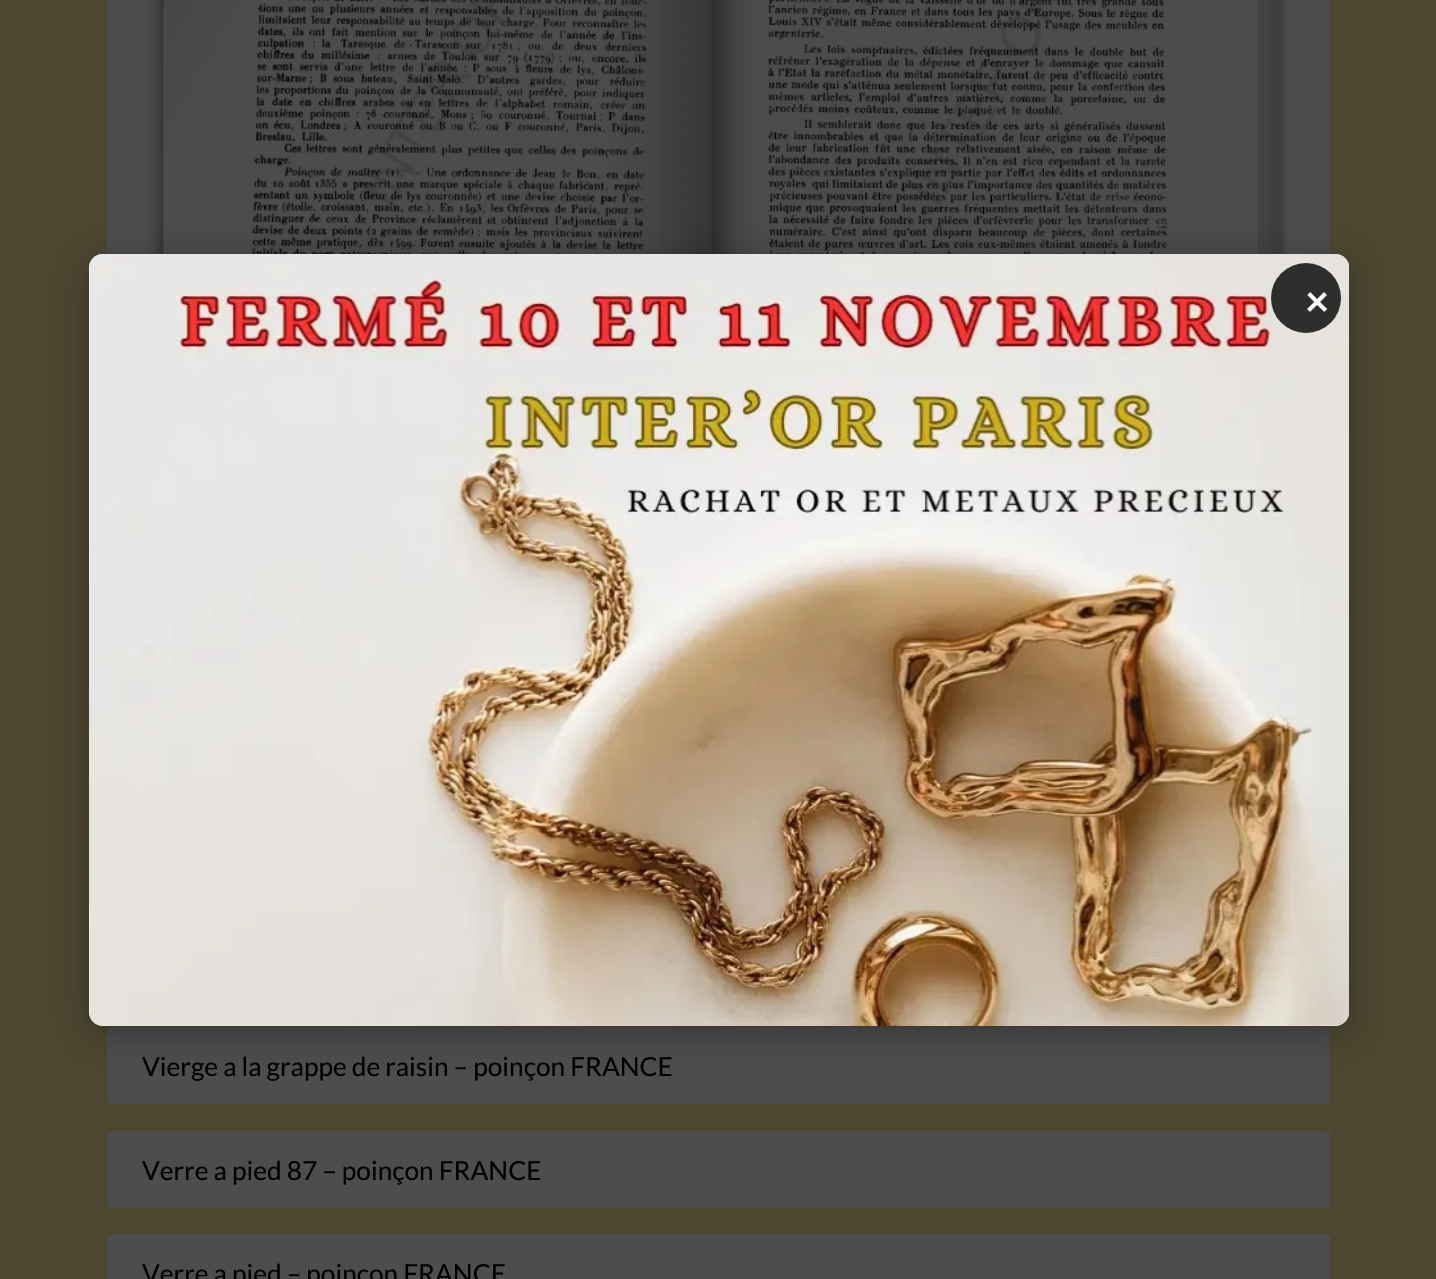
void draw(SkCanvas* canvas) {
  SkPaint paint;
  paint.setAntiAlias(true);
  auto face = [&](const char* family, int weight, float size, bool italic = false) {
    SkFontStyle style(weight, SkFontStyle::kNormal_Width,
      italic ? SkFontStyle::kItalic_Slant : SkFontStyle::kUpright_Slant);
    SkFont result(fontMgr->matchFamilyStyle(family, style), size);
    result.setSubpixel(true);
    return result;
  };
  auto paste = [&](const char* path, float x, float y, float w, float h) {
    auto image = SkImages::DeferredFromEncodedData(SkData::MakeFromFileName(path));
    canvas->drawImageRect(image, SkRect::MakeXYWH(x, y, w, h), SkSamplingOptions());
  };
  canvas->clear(0xff4d4731);
  paint.setColor(0xff4d4d4d);
  canvas->drawRect(SkRect::MakeXYWH(107, 0, 1223, 254), paint);
  paste("img/2.png", 145, 0, 1143, 254);
  canvas->drawRoundRect(SkRect::MakeXYWH(107, 1027, 1223, 77), 5, 5, paint);
  paint.setColor(0x4d000000);
  paint.setMaskFilter(SkMaskFilter::MakeBlur(kNormal_SkBlurStyle, 17.5f));
  canvas->drawRoundRect(SkRect::MakeXYWH(89, 261, 1260, 772), 14, 14, paint);
  paint.setMaskFilter(nullptr);
  paint.setColor(0xffffffff);
  canvas->drawRoundRect(SkRect::MakeXYWH(89, 254, 1260, 772), 14, 14, paint);
  paste("img/1.png", 89, 254, 1260, 772);
  paint.setColor(0xcc000000);
  canvas->drawCircle(1306, 298, 35, paint);
  paint.setColor(0xff4d4d4d);
  canvas->drawRoundRect(SkRect::MakeXYWH(107, 1131, 1223, 77), 5, 5, paint);
  canvas->drawRoundRect(SkRect::MakeXYWH(107, 1234, 1223, 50), 5, 5, paint);
  auto f0 = face("Lato", 700, 42);
  paint.setColor(0xffffffff);
  canvas->drawString("×", 1305, 316, f0, paint);
  auto f1 = face("Lato", 400, 26.25f);
  paint.setColor(0xff000000);
  {
    const struct { const char* s; float x, y; } items[] = {
      {"Vierge a la grappe de raisin – poinçon FRANCE", 142, 1076},
      {"Verre a pied 87 – poinçon FRANCE", 142, 1180},
      {"Verre a pied – poinçon FRANCE", 142, 1283},
    };
    for (auto [s, x, y] : items) {
      canvas->drawString(s, x, y, f1, paint);
    }
  }
}
